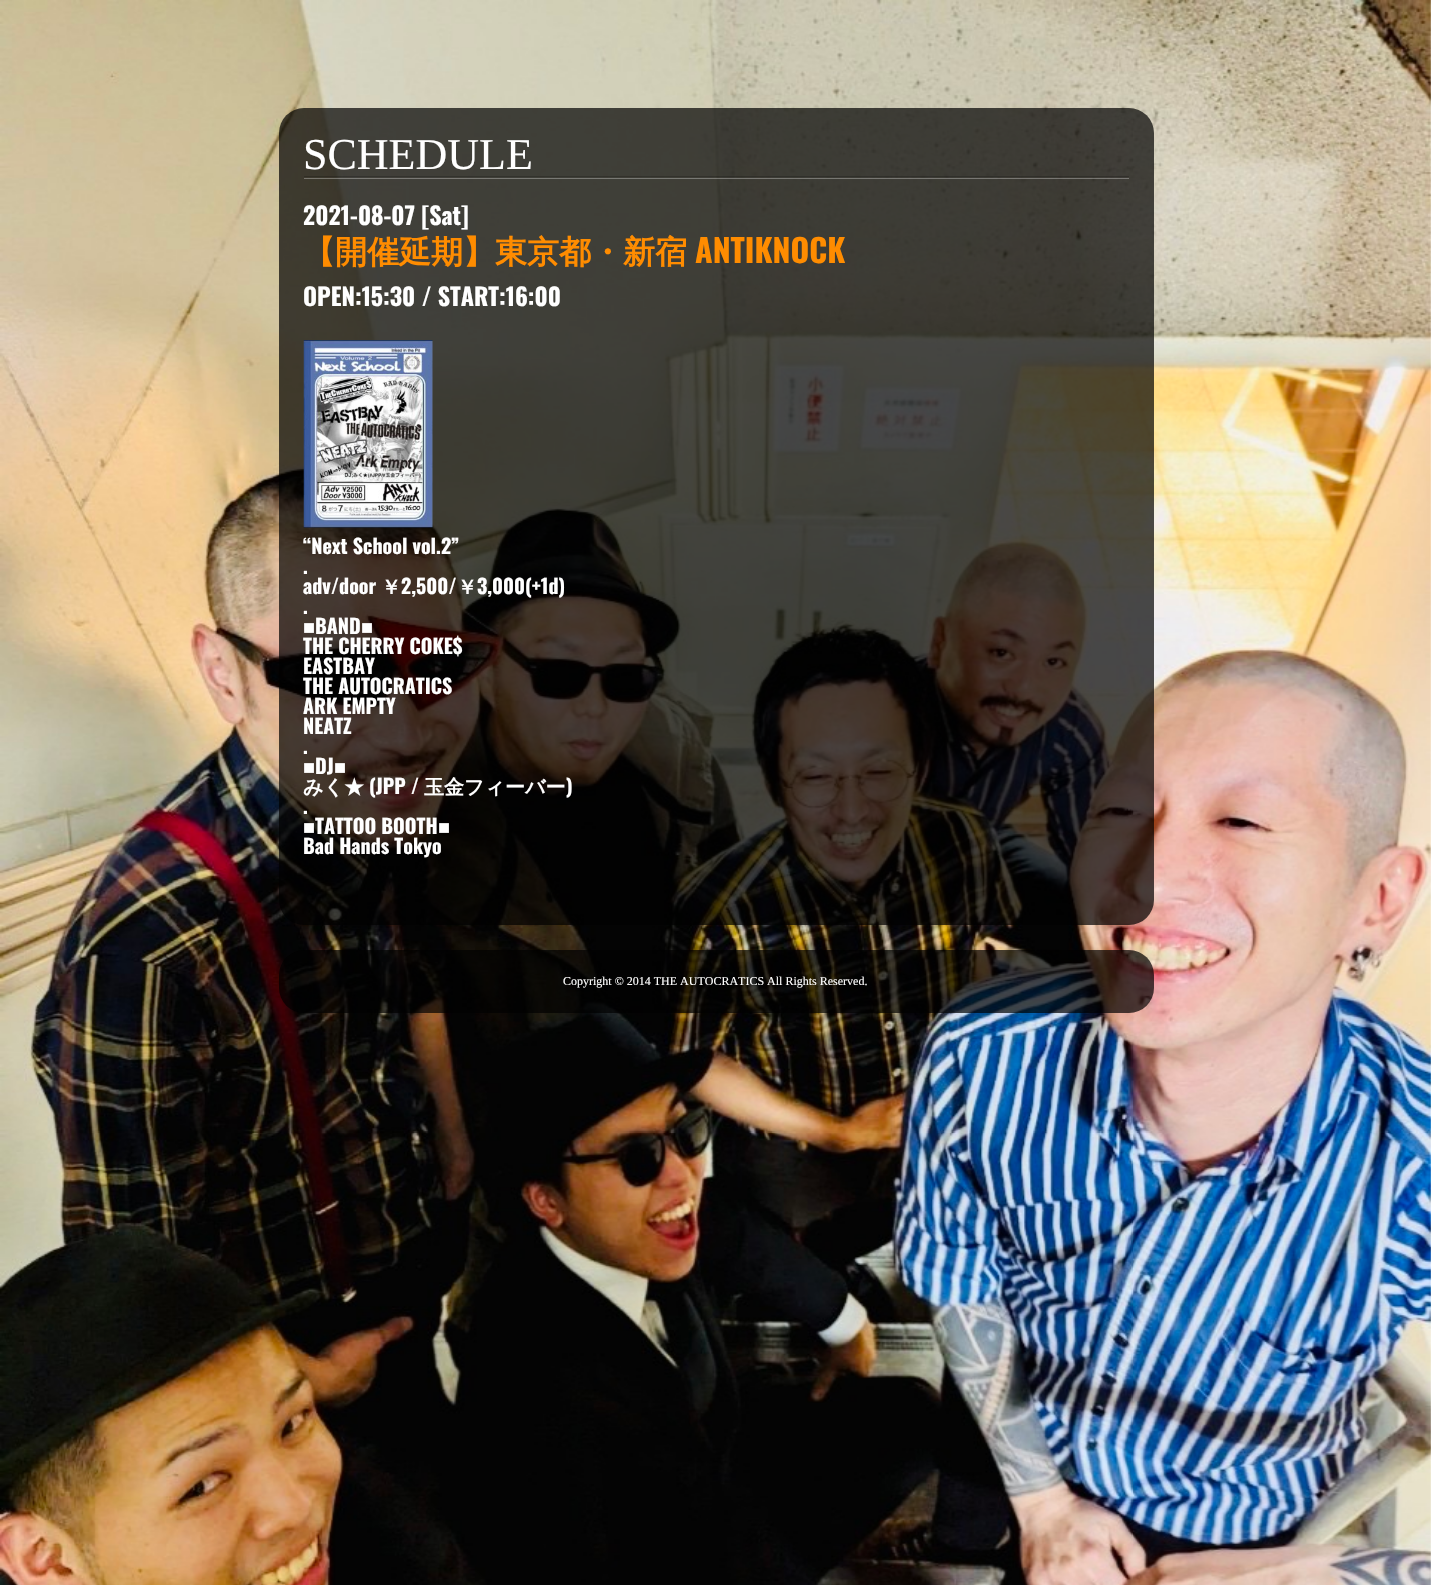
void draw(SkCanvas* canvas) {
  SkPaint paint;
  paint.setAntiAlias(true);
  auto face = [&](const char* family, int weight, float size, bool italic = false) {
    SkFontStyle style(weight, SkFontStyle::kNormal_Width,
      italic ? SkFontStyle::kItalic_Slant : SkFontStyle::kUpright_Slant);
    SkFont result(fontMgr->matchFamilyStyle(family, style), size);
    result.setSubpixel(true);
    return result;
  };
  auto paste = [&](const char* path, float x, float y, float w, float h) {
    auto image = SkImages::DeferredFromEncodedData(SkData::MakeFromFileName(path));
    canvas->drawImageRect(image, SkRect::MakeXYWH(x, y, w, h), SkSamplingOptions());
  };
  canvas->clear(0xffffffff);
  paste("img/1.png", 0, 0, 1431, 1585);
  paint.setColor(0xb3000000);
  canvas->drawRoundRect(SkRect::MakeXYWH(279, 108, 875, 817), 25, 25, paint);
  paint.setColor(0x4dffffff);
  canvas->drawRect(SkRect::MakeXYWH(304, 178, 825, 1), paint);
  paint.setColor(0x33000000);
  canvas->drawRect(SkRect::MakeXYWH(304, 176, 825, 1), paint);
  paste("img/2.png", 303, 340, 130, 188);
  paint.setColor(0xb3000000);
  canvas->drawRoundRect(SkRect::MakeXYWH(279, 950, 875, 63), 25, 25, paint);
  auto f0 = face("Liberation Serif", 400, 44);
  paint.setColor(0xffffffff);
  canvas->drawString("SCHEDULE", 303, 169, f0, paint);
  auto f1 = face("Oswald", 700, 24);
  canvas->drawString("2021-08-07 [Sat]", 303, 225, f1, paint);
  auto f2 = face("WenQuanYi Zen Hei", 700, 32);
  paint.setColor(0xffff8c00);
  canvas->drawString("【開催延期】東京都・新宿", 303, 263, f2, paint);
  auto f3 = face("Oswald", 700, 32);
  canvas->drawString("ANTIKNOCK", 695, 263, f3, paint);
  paint.setColor(0xffffffff);
  canvas->drawString("OPEN:15:30 / START:16:00", 303, 306, f1, paint);
  auto f4 = face("Oswald", 700, 20);
  {
    const struct { const char* s; float x, y; } items[] = {
      {"“Next School vol.2”", 303, 554},
      {".", 303, 574},
      {"adv/door", 303, 594},
    };
    for (auto [s, x, y] : items) {
      canvas->drawString(s, x, y, f4, paint);
    }
  }
  auto f5 = face("WenQuanYi Zen Hei", 700, 20);
  canvas->drawString("￥", 381, 594, f5, paint);
  canvas->drawString("2,500/", 401, 594, f4, paint);
  canvas->drawString("￥", 457, 594, f5, paint);
  canvas->drawString("3,000(+1d)", 477, 594, f4, paint);
  canvas->drawString(".", 303, 614, f4, paint);
  auto f6 = face("Liberation Sans", 700, 20);
  canvas->drawString("■", 303, 634, f6, paint);
  canvas->drawString("BAND", 315, 634, f4, paint);
  canvas->drawString("■", 361, 634, f6, paint);
  {
    const struct { const char* s; float x, y; } items[] = {
      {"THE CHERRY COKE$", 303, 654},
      {"EASTBAY", 303, 674},
      {"THE AUTOCRATICS", 303, 694},
      {"ARK EMPTY", 303, 714},
      {"NEATZ", 303, 734},
      {".", 303, 754},
    };
    for (auto [s, x, y] : items) {
      canvas->drawString(s, x, y, f4, paint);
    }
  }
  canvas->drawString("■", 303, 774, f6, paint);
  canvas->drawString("DJ", 315, 774, f4, paint);
  canvas->drawString("■", 334, 774, f6, paint);
  canvas->drawString("みく★", 303, 794, f5, paint);
  canvas->drawString("(JPP /", 369, 794, f4, paint);
  canvas->drawString("玉金フィーバー", 424, 794, f5, paint);
  canvas->drawString(")", 566, 794, f4, paint);
  canvas->drawString(".", 303, 814, f4, paint);
  canvas->drawString("■", 303, 834, f6, paint);
  canvas->drawString("TATTOO BOOTH", 315, 834, f4, paint);
  canvas->drawString("■", 438, 834, f6, paint);
  canvas->drawString("Bad Hands Tokyo", 303, 854, f4, paint);
  auto f7 = face("Liberation Serif", 400, 12);
  canvas->drawString("Copyright © 2014 THE AUTOCRATICS All Rights Reserved.", 563, 985, f7, paint);
}
